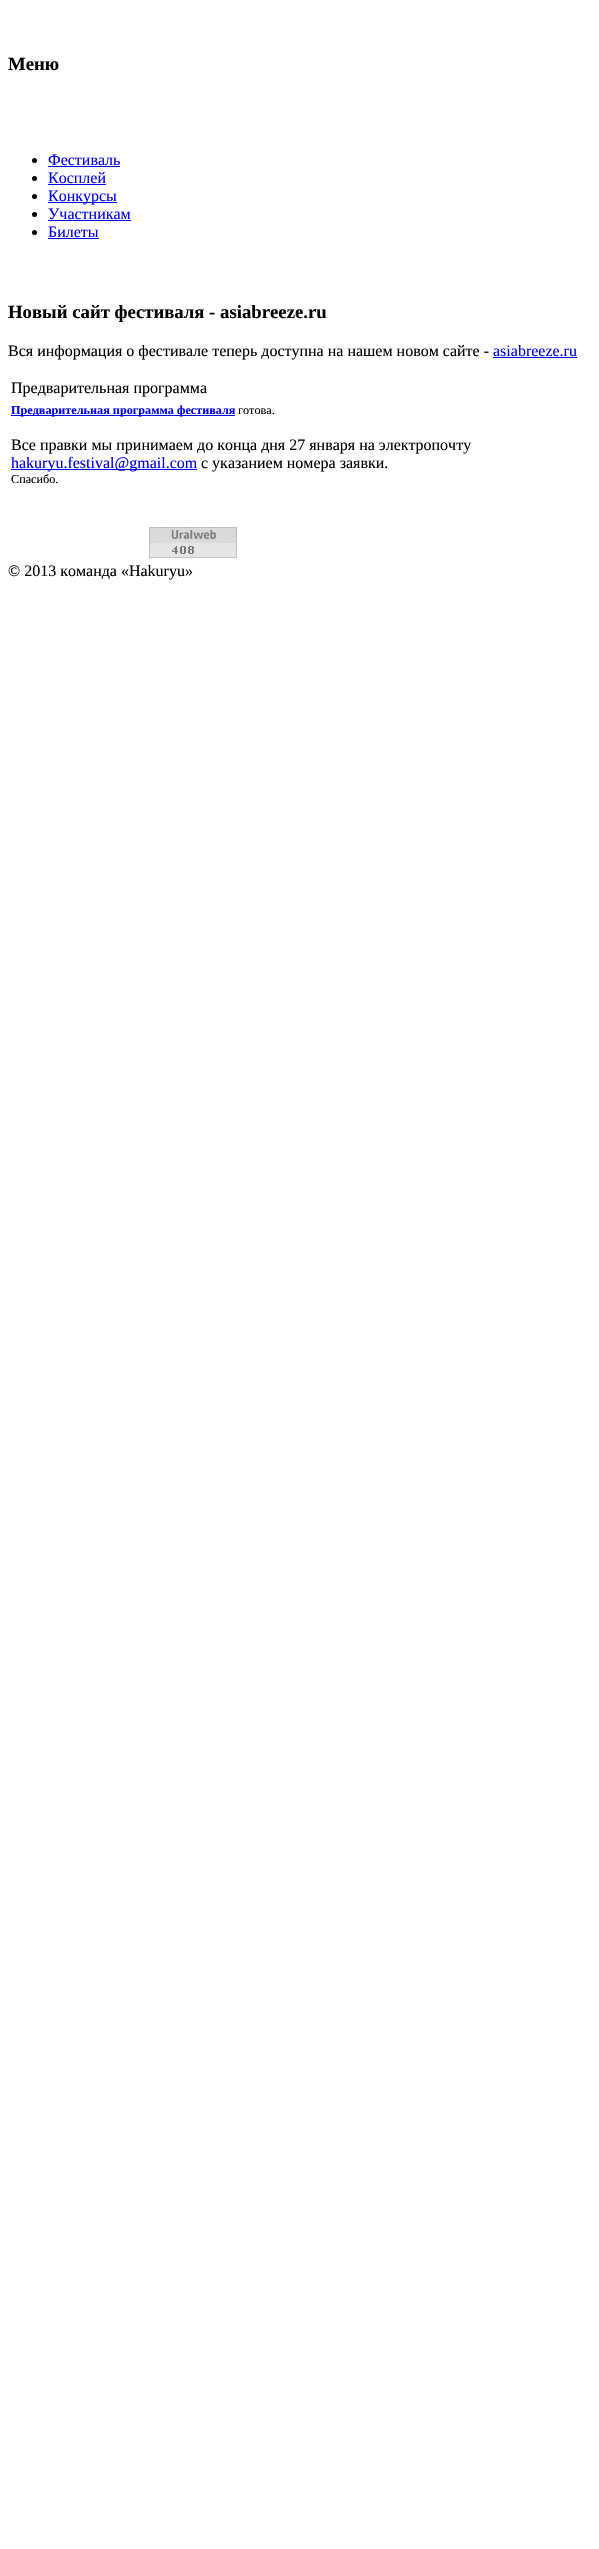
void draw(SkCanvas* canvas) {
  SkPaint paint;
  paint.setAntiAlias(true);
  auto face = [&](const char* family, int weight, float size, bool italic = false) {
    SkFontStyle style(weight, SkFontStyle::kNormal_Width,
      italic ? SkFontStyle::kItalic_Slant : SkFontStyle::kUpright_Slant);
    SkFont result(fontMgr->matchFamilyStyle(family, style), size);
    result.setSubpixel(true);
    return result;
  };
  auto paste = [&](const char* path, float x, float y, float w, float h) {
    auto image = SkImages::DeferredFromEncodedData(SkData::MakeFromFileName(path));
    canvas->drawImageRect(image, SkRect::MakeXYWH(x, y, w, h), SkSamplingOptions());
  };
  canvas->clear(0xffffffff);
  paint.setColor(0xff000000);
  canvas->drawCircle(34.5f, 160.5f, 2.5f, paint);
  paint.setColor(0xff0000ee);
  canvas->drawRect(SkRect::MakeXYWH(48, 166, 72, 1), paint);
  paint.setColor(0xff000000);
  canvas->drawCircle(34.5f, 178.5f, 2.5f, paint);
  paint.setColor(0xff0000ee);
  canvas->drawRect(SkRect::MakeXYWH(48, 184, 58, 1), paint);
  paint.setColor(0xff000000);
  canvas->drawCircle(34.5f, 196.5f, 2.5f, paint);
  paint.setColor(0xff0000ee);
  canvas->drawRect(SkRect::MakeXYWH(48, 202, 69, 1), paint);
  paint.setColor(0xff000000);
  canvas->drawCircle(34.5f, 214.5f, 2.5f, paint);
  paint.setColor(0xff0000ee);
  canvas->drawRect(SkRect::MakeXYWH(48, 220, 83, 1), paint);
  paint.setColor(0xff000000);
  canvas->drawCircle(34.5f, 232.5f, 2.5f, paint);
  {
    const struct { float x, y, w, h; SkColor color; } items[] = {
      {48, 238, 51, 1, 0xff0000ee},
      {493, 357, 84, 1, 0xff0000ee},
      {11, 415, 224, 1, 0xff0000ee},
      {11, 469, 186, 1, 0xff0000ee},
    };
    for (auto [x, y, w, h, color] : items) {
      paint.setColor(color);
      canvas->drawRect(SkRect::MakeXYWH(x, y, w, h), paint);
    }
  }
  paste("img/1.png", 149, 527, 88, 31);
  auto f0 = face("Liberation Serif", 700, 18.75f);
  paint.setColor(0xff000000);
  canvas->drawString("Меню", 8, 70, f0, paint);
  auto f1 = face("Liberation Serif", 400, 16);
  paint.setColor(0xff0000ee);
  {
    const struct { const char* s; float x, y; } items[] = {
      {"Фестиваль", 48, 165},
      {"Косплей", 48, 183},
      {"Конкурсы", 48, 201},
      {"Участникам", 48, 219},
      {"Билеты", 48, 237},
    };
    for (auto [s, x, y] : items) {
      canvas->drawString(s, x, y, f1, paint);
    }
  }
  paint.setColor(0xff000000);
  canvas->drawString("Новый сайт фестиваля - asiabreeze.ru", 8, 318, f0, paint);
  canvas->drawString("Вся информация о фестивале теперь доступна на нашем новом сайте -", 8, 356, f1, paint);
  paint.setColor(0xff0000ee);
  canvas->drawString("asiabreeze.ru", 493, 356, f1, paint);
  paint.setColor(0xff000000);
  canvas->drawString("Предварительная программа", 11, 393, f1, paint);
  auto f2 = face("Liberation Serif", 700, 12.2f);
  paint.setColor(0xff0000ee);
  canvas->drawString("Предварительная программа фестиваля", 11, 414, f2, paint);
  auto f3 = face("Liberation Serif", 400, 12.2f);
  paint.setColor(0xff000000);
  canvas->drawString("готова.", 238, 414, f3, paint);
  canvas->drawString("Все правки мы принимаем до конца дня 27 января на электропочту", 11, 450, f1, paint);
  paint.setColor(0xff0000ee);
  canvas->drawString("hakuryu.festival@gmail.com", 11, 468, f1, paint);
  paint.setColor(0xff000000);
  canvas->drawString("с указанием номера заявки.", 201, 468, f1, paint);
  canvas->drawString("Спасибо.", 11, 483, f3, paint);
  canvas->drawString("© 2013 команда «Hakuryu»", 8, 576, f1, paint);
}
